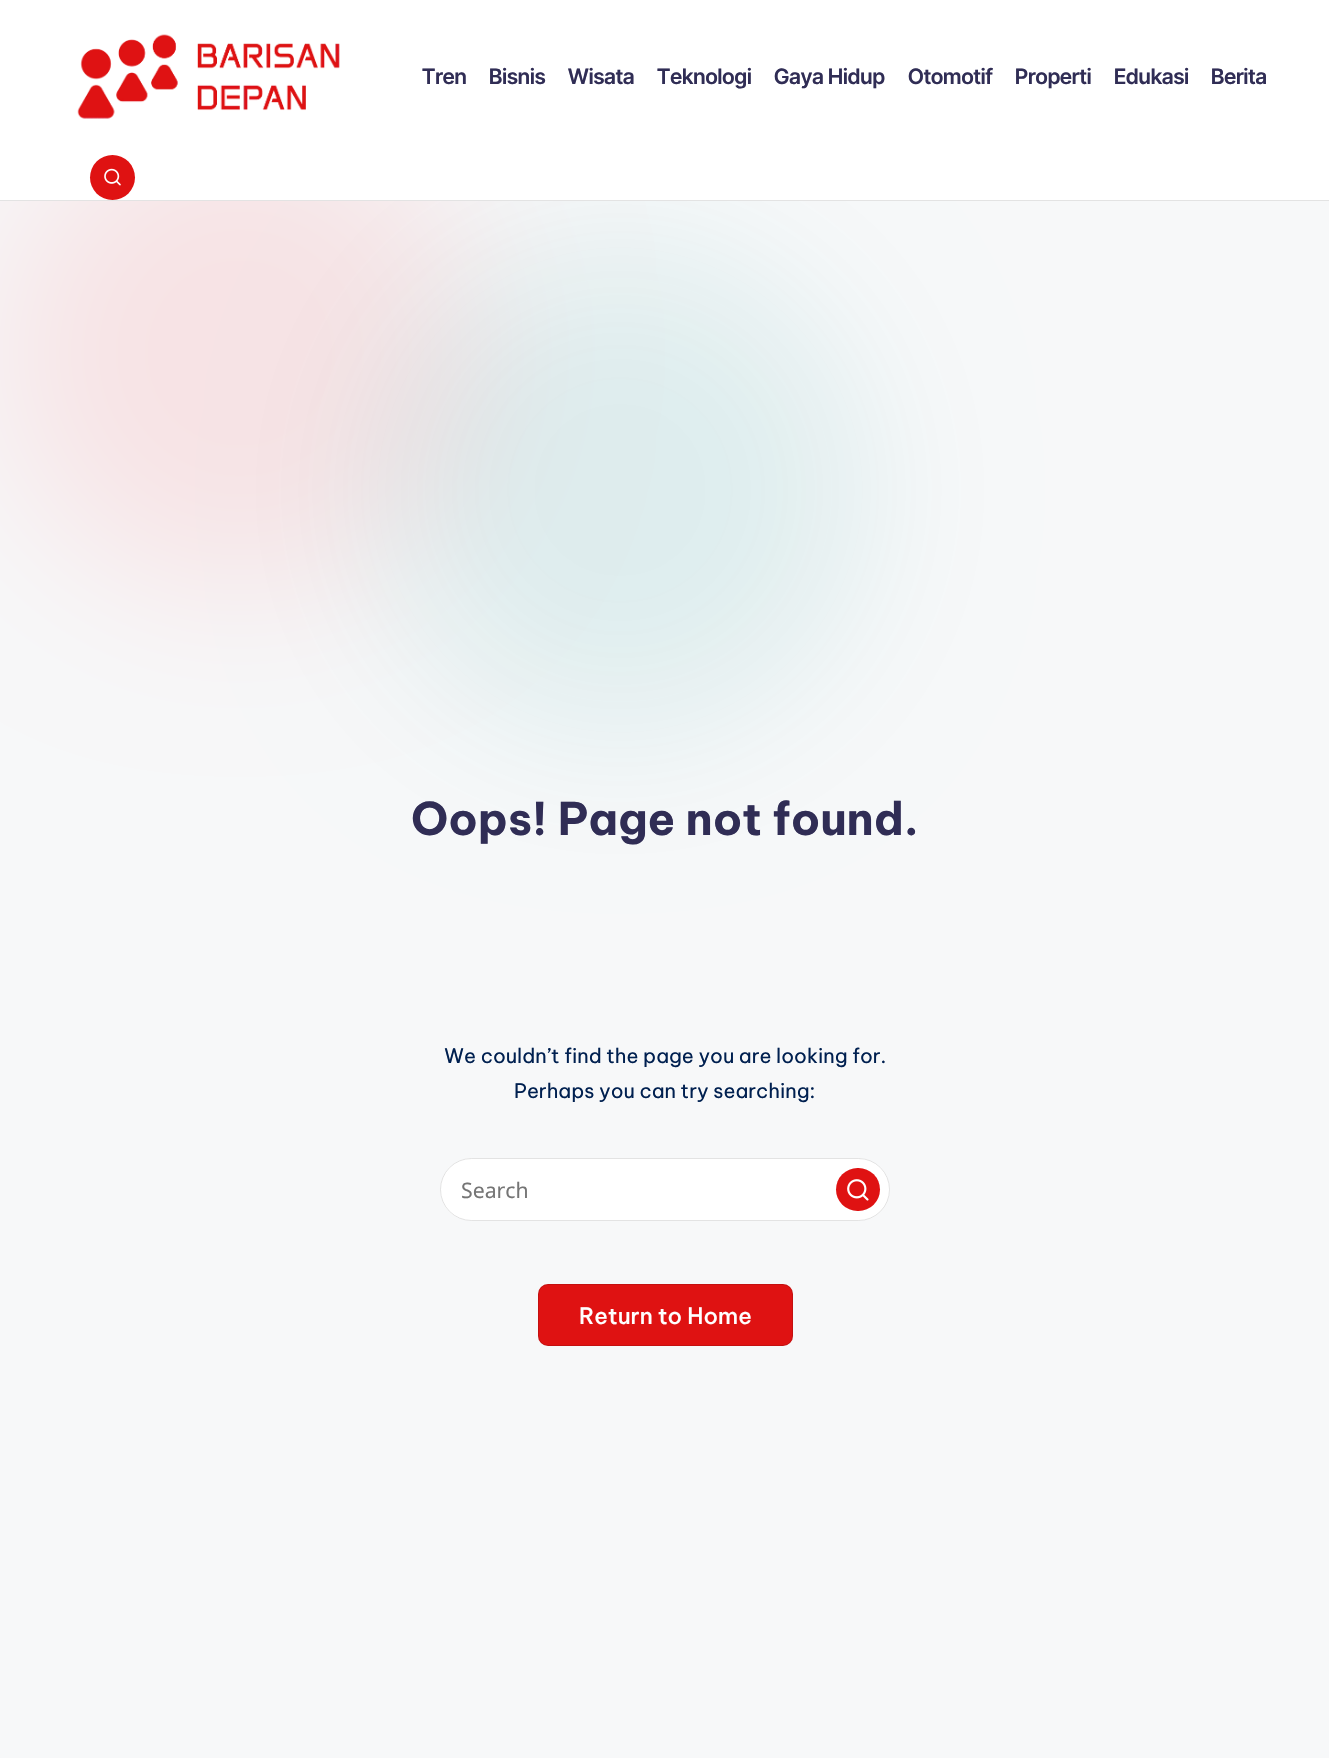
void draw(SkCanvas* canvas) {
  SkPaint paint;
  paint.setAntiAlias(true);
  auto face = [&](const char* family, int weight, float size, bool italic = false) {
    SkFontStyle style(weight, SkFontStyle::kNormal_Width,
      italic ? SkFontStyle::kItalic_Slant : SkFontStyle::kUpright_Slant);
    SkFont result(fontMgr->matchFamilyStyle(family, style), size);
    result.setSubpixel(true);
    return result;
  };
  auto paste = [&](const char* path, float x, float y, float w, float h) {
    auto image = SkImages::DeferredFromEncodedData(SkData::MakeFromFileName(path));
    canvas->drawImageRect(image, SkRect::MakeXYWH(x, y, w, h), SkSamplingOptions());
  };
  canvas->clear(0xfff7f8f9);
  paint.setColor(0xfff7e3e5);
  paint.setMaskFilter(SkMaskFilter::MakeBlur(kNormal_SkBlurStyle, 80));
  canvas->drawRoundRect(SkRect::MakeXYWH(0, 113, 480, 480), 240, 240, paint);
  paint.setMaskFilter(nullptr);
  paint.setColor(0x1a04868b);
  paint.setMaskFilter(SkMaskFilter::MakeBlur(kNormal_SkBlurStyle, 80));
  canvas->drawRoundRect(SkRect::MakeXYWH(380, 250, 480, 480), 240, 240, paint);
  paint.setMaskFilter(nullptr);
  paint.setColor(0xffffffff);
  canvas->drawRect(SkRect::MakeXYWH(0, 0, 1329, 200), paint);
  paint.setColor(0xffe3e3e3);
  canvas->drawRect(SkRect::MakeXYWH(0, 200, 1329, 1), paint);
  paste("img/1.png", 77, 34, 263, 85);
  paint.setColor(0xffdf1212);
  canvas->drawCircle(112.5f, 177.5f, 22.5f, paint);
  paste("img/2.png", 104, 168, 17, 18);
  paint.setColor(0xffffffff);
  canvas->drawRoundRect(SkRect::MakeXYWH(440, 1158, 450, 63), 31.5f, 31.5f, paint);
  paint.setStroke(true);
  paint.setStrokeWidth(1);
  paint.setColor(0x66b9b9b9);
  canvas->drawRoundRect(SkRect::MakeXYWH(440.5f, 1158.5f, 449, 62), 31, 31, paint);
  paint.setStroke(false);
  paint.setColor(0xffdf1212);
  canvas->drawRoundRect(SkRect::MakeXYWH(836, 1168, 44, 43), 21.5f, 21.5f, paint);
  paste("img/3.png", 847, 1179, 22, 22);
  canvas->drawRoundRect(SkRect::MakeXYWH(538, 1284, 255, 62), 10, 10, paint);
  paint.setStroke(true);
  paint.setColor(0x1f000000);
  canvas->drawRoundRect(SkRect::MakeXYWH(538.5f, 1284.5f, 254, 61), 9.5f, 9.5f, paint);
  auto f0 = face("Inter Tight", 600, 21.25f);
  paint.setStroke(false);
  paint.setColor(0xff302d55);
  {
    const struct { const char* s; float x, y; } items[] = {
      {"Tren", 422, 84},
      {"Bisnis", 489, 84},
      {"Wisata", 568, 84},
      {"Teknologi", 657, 84},
      {"Gaya Hidup", 774, 84},
      {"Otomotif", 908, 84},
      {"Properti", 1015, 84},
      {"Edukasi", 1114, 84},
      {"Berita", 1211, 84},
    };
    for (auto [s, x, y] : items) {
      canvas->drawString(s, x, y, f0, paint);
    }
  }
  auto f1 = face("Be Vietnam Pro", 700, 45);
  canvas->drawString("Oops! Page not found.", 411, 835, f1, paint);
  auto f2 = face("Be Vietnam Pro", 400, 20);
  paint.setColor(0xff002050);
  canvas->drawString("We couldn’t find the page you are looking for.", 444, 1063, f2, paint);
  canvas->drawString("Perhaps you can try searching:", 514, 1098, f2, paint);
  auto f3 = face("Noto Sans", 400, 21.25f);
  paint.setColor(0xff757575);
  canvas->drawString("Search", 461, 1198, f3, paint);
  auto f4 = face("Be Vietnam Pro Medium", 500, 22.5f);
  paint.setColor(0xffffffff);
  canvas->drawString("Return to Home", 579, 1324, f4, paint);
}
